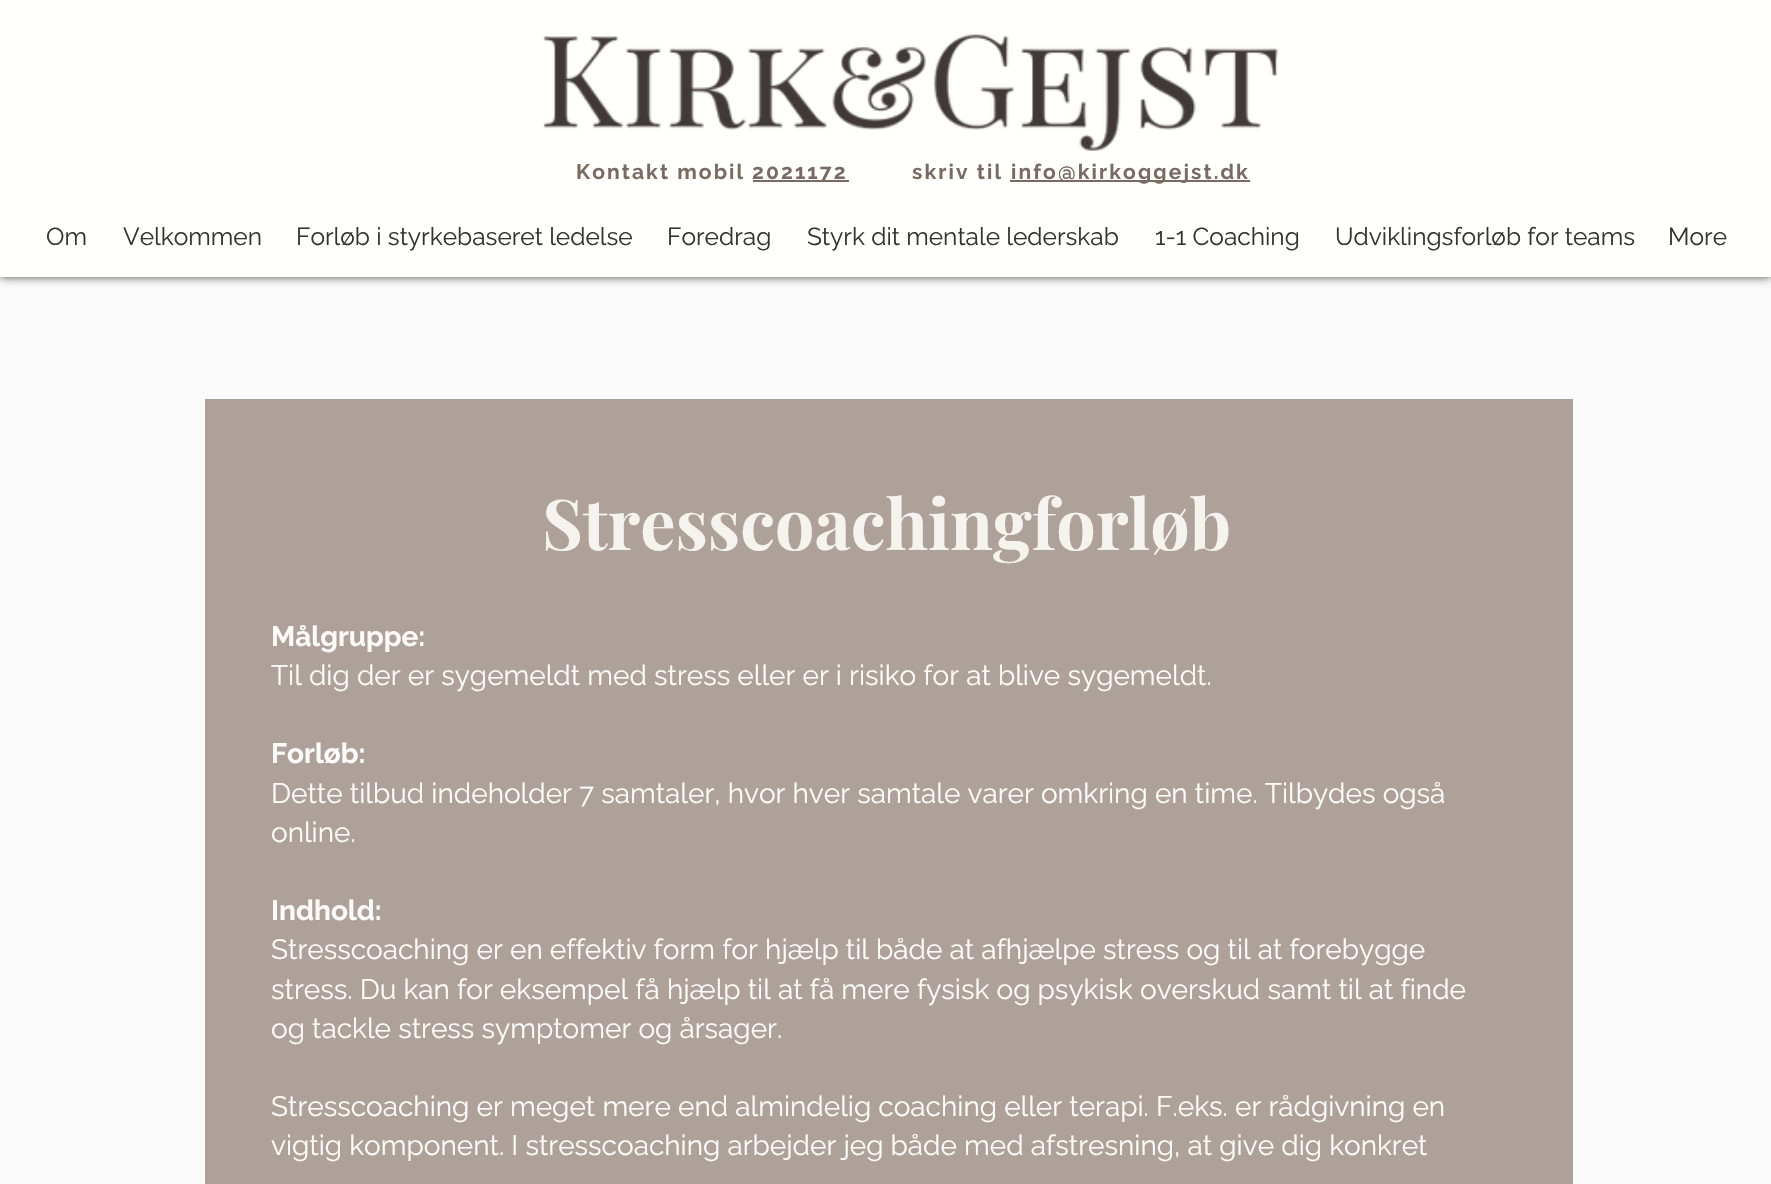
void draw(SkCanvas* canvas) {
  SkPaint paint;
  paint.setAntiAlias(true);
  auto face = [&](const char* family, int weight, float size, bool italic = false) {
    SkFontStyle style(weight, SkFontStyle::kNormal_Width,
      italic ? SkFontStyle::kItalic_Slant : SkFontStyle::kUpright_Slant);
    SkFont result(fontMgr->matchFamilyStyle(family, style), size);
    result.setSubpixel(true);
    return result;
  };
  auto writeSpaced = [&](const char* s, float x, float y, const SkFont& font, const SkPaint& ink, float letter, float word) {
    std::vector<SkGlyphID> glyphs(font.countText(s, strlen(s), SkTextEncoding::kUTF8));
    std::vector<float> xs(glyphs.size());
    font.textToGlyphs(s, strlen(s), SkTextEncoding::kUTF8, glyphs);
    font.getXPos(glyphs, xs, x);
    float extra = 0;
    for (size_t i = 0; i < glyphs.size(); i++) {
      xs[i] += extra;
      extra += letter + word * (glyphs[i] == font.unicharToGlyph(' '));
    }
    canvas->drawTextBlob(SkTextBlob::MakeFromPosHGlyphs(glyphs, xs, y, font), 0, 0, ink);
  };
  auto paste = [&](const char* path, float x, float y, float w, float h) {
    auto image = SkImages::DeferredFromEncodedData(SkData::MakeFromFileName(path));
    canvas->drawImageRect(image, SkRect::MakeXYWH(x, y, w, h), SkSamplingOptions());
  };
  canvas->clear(0xfffafafa);
  paint.setColor(0xb3000000);
  paint.setMaskFilter(SkMaskFilter::MakeBlur(kNormal_SkBlurStyle, 4.5f));
  canvas->drawRect(SkRect::MakeXYWH(0, 0, 1771, 277), paint);
  paint.setMaskFilter(nullptr);
  paint.setColor(0xfffffffc);
  canvas->drawRect(SkRect::MakeXYWH(0, 0, 1771, 277), paint);
  paste("img/1.png", 543, 33, 735, 118);
  {
    const struct { float x, y, w, h; SkColor color; } items[] = {
      {753, 180, 96, 2, 0xff7a6b62},
      {1010, 180, 240, 2, 0xff7a6b62},
      {205, 399, 1368, 785, 0xffaea199},
    };
    for (auto [x, y, w, h, color] : items) {
      paint.setColor(color);
      canvas->drawRect(SkRect::MakeXYWH(x, y, w, h), paint);
    }
  }
  auto f0 = face("Raleway", 700, 21);
  paint.setColor(0xff7a6b62);
  {
    const struct { const char* s; float x, y; } items[] = {
      {"Kontakt mobil", 576, 179},
      {"2021172", 752, 179},
      {"skriv til", 912, 179},
      {"info@kirkoggejst.dk", 1011, 179},
    };
    for (auto [s, x, y] : items) {
      writeSpaced(s, x, y, f0, paint, 2.1f, 0);
    }
  }
  auto f1 = face("Raleway", 400, 24.5f);
  paint.setColor(0xff333332);
  {
    const struct { const char* s; float x, y; } items[] = {
      {"Om", 46, 245},
      {"Velkommen", 123, 245},
      {"Forløb i styrkebaseret ledelse", 296, 245},
      {"Foredrag", 667, 245},
      {"Styrk dit mentale lederskab", 807, 245},
      {"1-1 Coaching", 1155, 245},
      {"Udviklingsforløb for teams", 1335, 245},
      {"More", 1668, 245},
    };
    for (auto [s, x, y] : items) {
      canvas->drawString(s, x, y, f1, paint);
    }
  }
  auto f2 = face("Playfair Display", 700, 70);
  paint.setColor(0xfff6f2ed);
  canvas->drawString("Stresscoachingforløb", 542, 550, f2, paint);
  auto f3 = face("Raleway", 700, 28);
  paint.setColor(0xfffdfbf9);
  canvas->drawString("Målgruppe:", 271, 646, f3, paint);
  auto f4 = face("Raleway", 400, 28);
  canvas->drawString("Til dig der er sygemeldt med stress eller er i risiko for at blive sygemeldt.", 271, 685, f4, paint);
  canvas->drawString("Forløb:", 271, 763, f3, paint);
  canvas->drawString("Dette tilbud indeholder 7 samtaler, hvor hver samtale varer omkring en time. Tilbydes også", 271, 803, f4, paint);
  canvas->drawString("online.", 271, 842, f4, paint);
  canvas->drawString("Indhold:", 271, 920, f3, paint);
  {
    const struct { const char* s; float x, y; } items[] = {
      {"Stresscoaching er en effektiv form for hjælp til både at afhjælpe stress og til at forebygge", 271, 959},
      {"stress. Du kan for eksempel få hjælp til at få mere fysisk og psykisk overskud samt til at finde", 271, 999},
      {"og tackle stress symptomer og årsager.", 271, 1038},
      {"Stresscoaching er meget mere end almindelig coaching eller terapi. F.eks. er rådgivning en", 271, 1116},
      {"vigtig komponent. I stresscoaching arbejder jeg både med afstresning, at give dig konkret", 271, 1155},
    };
    for (auto [s, x, y] : items) {
      canvas->drawString(s, x, y, f4, paint);
    }
  }
}
